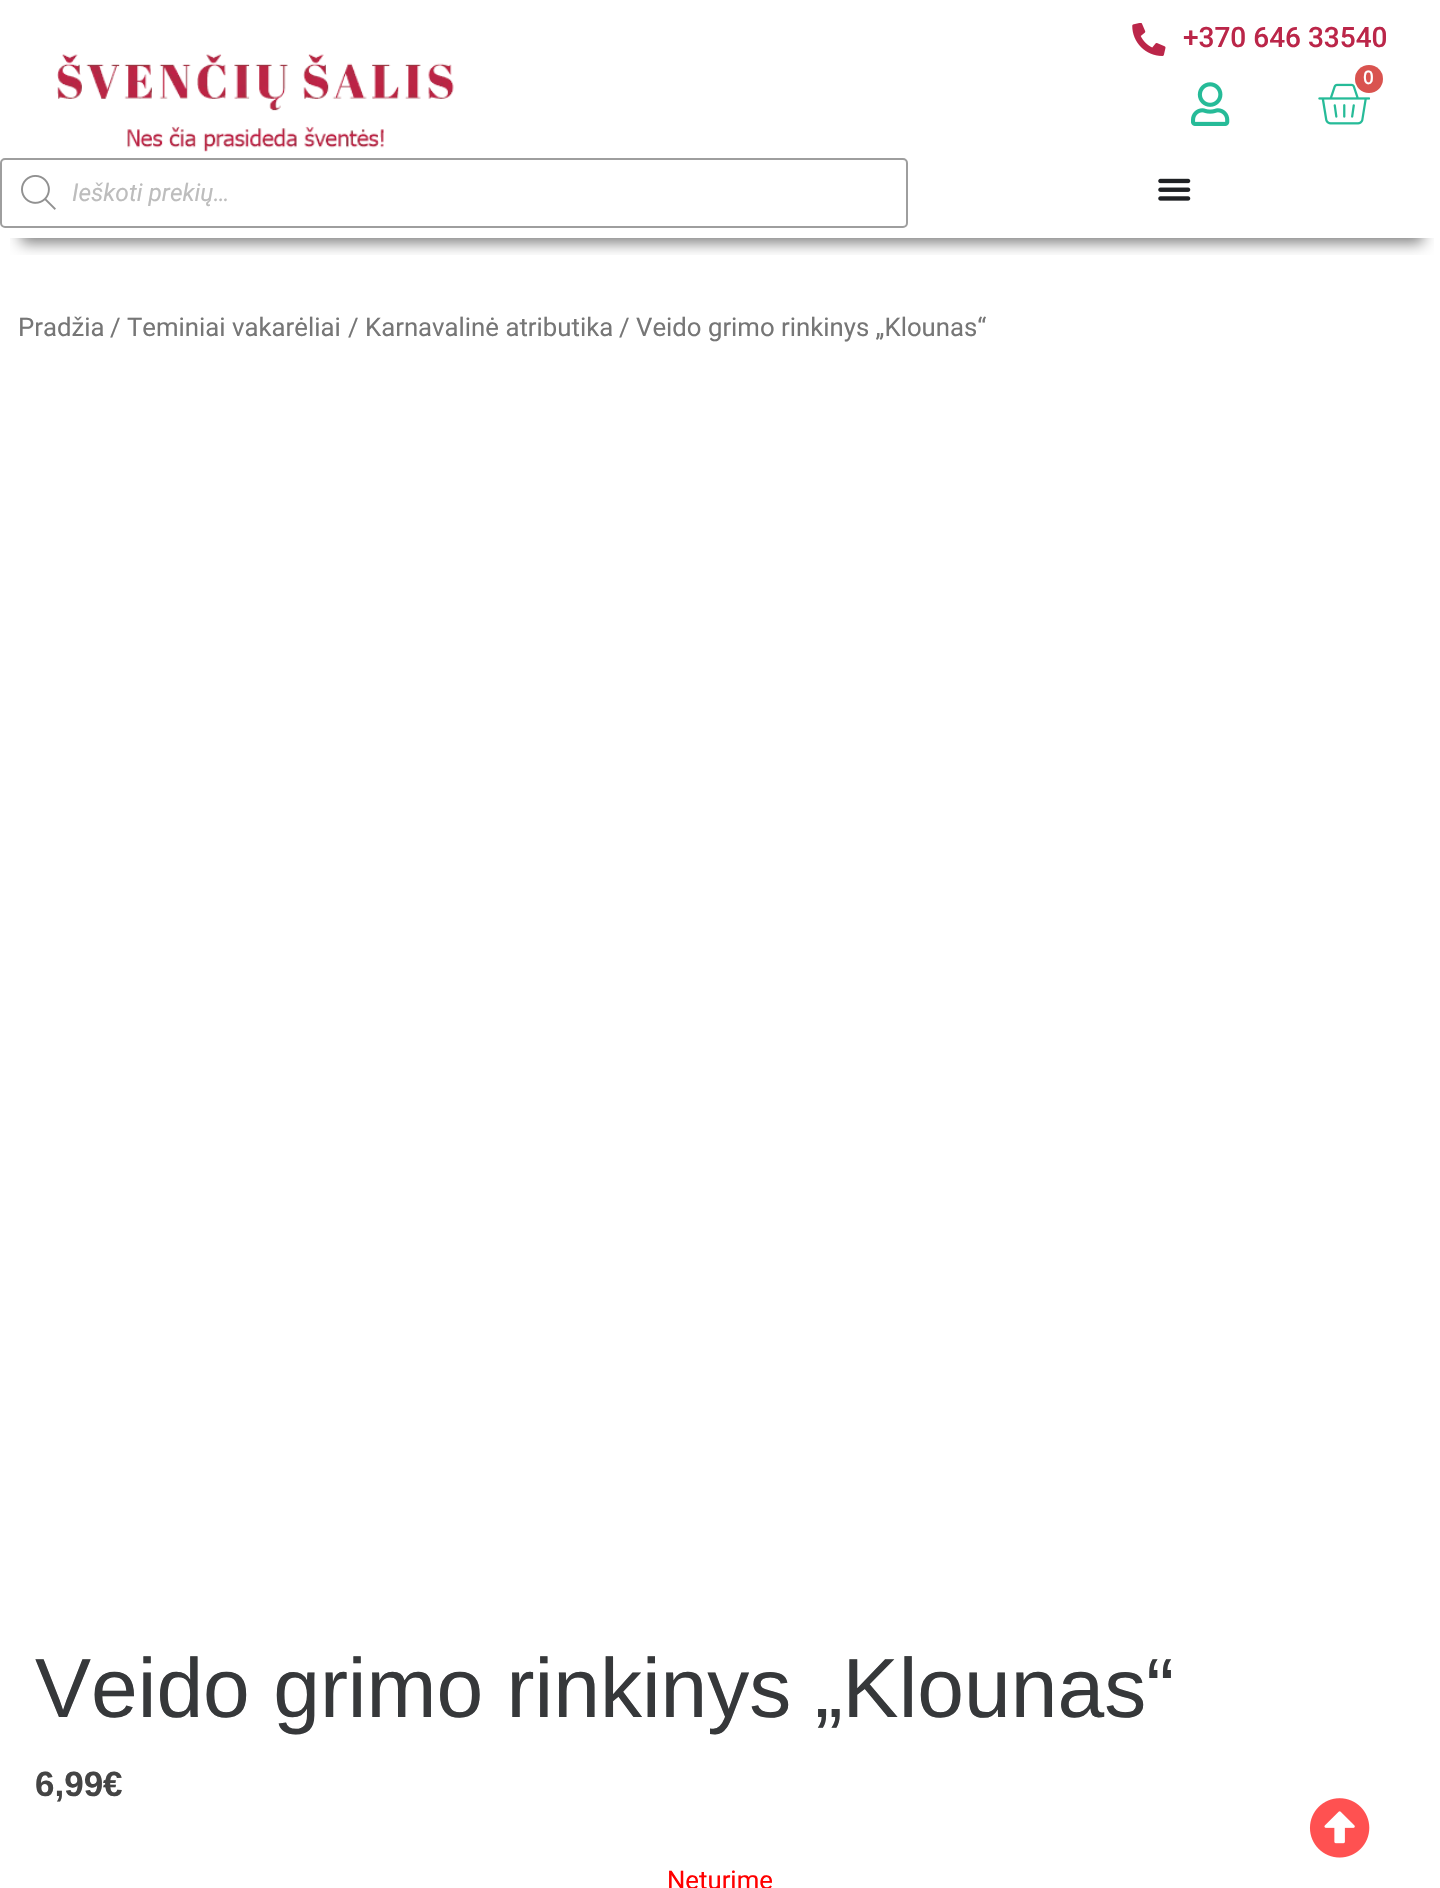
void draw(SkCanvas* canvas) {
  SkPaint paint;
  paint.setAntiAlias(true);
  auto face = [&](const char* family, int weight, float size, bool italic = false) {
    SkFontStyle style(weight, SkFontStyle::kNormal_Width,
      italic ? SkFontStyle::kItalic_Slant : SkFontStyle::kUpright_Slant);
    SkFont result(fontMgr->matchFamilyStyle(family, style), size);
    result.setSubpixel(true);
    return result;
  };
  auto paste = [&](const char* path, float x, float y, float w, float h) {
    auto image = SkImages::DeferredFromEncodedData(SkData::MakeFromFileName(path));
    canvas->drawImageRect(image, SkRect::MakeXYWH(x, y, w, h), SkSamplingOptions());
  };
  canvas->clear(0xffffffff);
  canvas->save();
  canvas->clipRect(SkRect::MakeXYWH(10, 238, 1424, 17));
  paint.setColor(0x80000000);
  paint.setMaskFilter(SkMaskFilter::MakeBlur(kNormal_SkBlurStyle, 7));
  canvas->drawRect(SkRect::MakeXYWH(21, 44, 1402, 199), paint);
  paint.setMaskFilter(nullptr);
  canvas->restore();
  paste("img/1.png", 1132, 23, 34, 33);
  paste("img/2.png", 57, 54, 397, 98);
  paste("img/3.png", 1318, 83, 52, 42);
  paint.setColor(0xffd9534f);
  canvas->drawCircle(1369, 79, 14, paint);
  paste("img/4.png", 1191, 82, 39, 44);
  paint.setStroke(true);
  paint.setStrokeWidth(2);
  paint.setColor(0xff9e9e9e);
  canvas->drawRoundRect(SkRect::MakeXYWH(1, 159, 906, 68), 4, 4, paint);
  paste("img/5.png", 21, 175, 35, 35);
  paste("img/6.png", 1158, 178, 33, 23);
  paste("img/7.png", 1309, 1798, 61, 60);
  auto f0 = face("Roboto", 500, 28);
  paint.setStroke(false);
  paint.setColor(0xffbb2649);
  canvas->drawString("+370 646 33540", 1183, 47, f0, paint);
  auto f1 = face("Open Sans", 700, 18);
  paint.setColor(0xffffffff);
  canvas->drawString("0", 1363, 84, f1, paint);
  auto f2 = face("Roboto", 400, 24.5f, true);
  paint.setColor(0xffbdbdbd);
  canvas->drawString("Ieškoti prekių…", 72, 201, f2, paint);
  auto f3 = face("Roboto", 400, 25.75f);
  paint.setColor(0xff767676);
  {
    const struct { const char* s; float x, y; } items[] = {
      {"Pradžia", 18, 336},
      {"/", 110, 336},
      {"Teminiai vakarėliai", 127, 336},
      {"/", 348, 336},
      {"Karnavalinė atributika", 365, 336},
      {"/ Veido grimo rinkinys „Klounas“", 619, 336},
    };
    for (auto [s, x, y] : items) {
      canvas->drawString(s, x, y, f3, paint);
    }
  }
  auto f4 = face("Liberation Sans", 400, 84);
  paint.setColor(0xff36383a);
  canvas->drawString("Veido grimo rinkinys „Klounas“", 35, 1717, f4, paint);
  auto f5 = face("Liberation Sans", 700, 35);
  paint.setColor(0xff444444);
  canvas->drawString("6,99€", 35, 1796, f5, paint);
  paint.setColor(0xffff0000);
  canvas->drawString("Neturime", 667, 1889, f3, paint);
}
